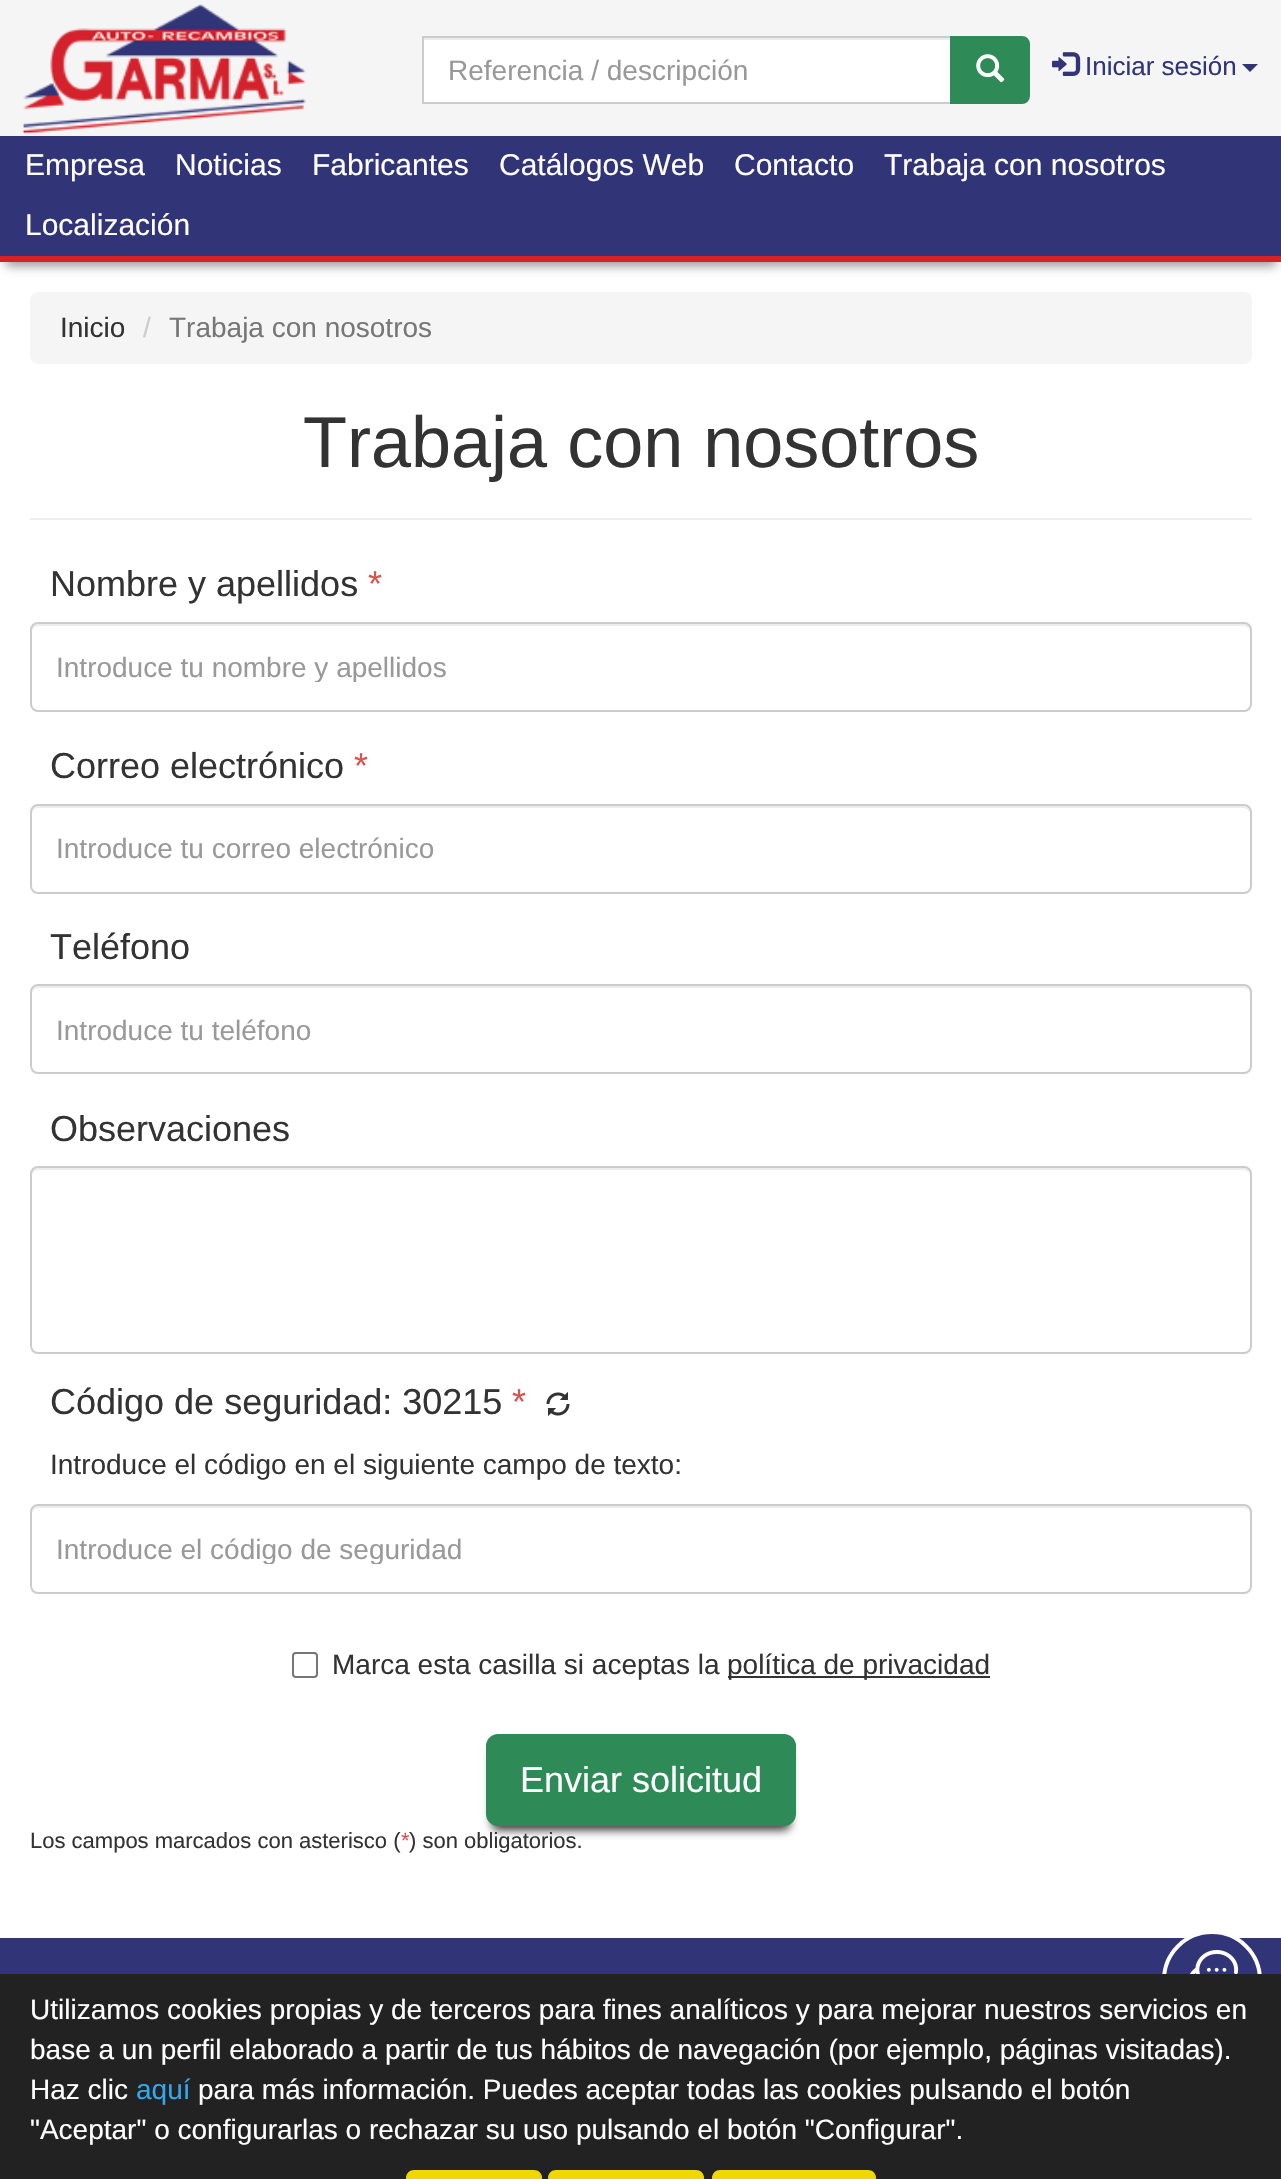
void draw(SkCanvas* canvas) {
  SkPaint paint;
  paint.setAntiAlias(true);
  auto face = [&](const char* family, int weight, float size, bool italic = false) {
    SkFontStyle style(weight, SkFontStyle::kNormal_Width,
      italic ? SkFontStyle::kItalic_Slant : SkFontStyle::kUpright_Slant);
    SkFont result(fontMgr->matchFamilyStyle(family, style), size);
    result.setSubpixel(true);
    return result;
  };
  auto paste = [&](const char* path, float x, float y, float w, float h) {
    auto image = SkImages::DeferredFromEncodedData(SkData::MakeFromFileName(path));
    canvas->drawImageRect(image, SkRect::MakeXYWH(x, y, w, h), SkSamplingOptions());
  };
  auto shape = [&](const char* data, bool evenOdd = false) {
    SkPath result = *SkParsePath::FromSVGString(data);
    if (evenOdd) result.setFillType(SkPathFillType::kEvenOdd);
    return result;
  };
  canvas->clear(0xffffffff);
  paint.setColor(0xfff5f5f5);
  canvas->drawRect(SkRect::MakeXYWH(0, 0, 1281, 136), paint);
  paste("img/1.png", 22, 4, 284, 130);
  paint.setColor(0xffffffff);
  canvas->drawRect(SkRect::MakeXYWH(424, 40, 526, 62), paint);
  paint.setColor(0xffececec);
  canvas->drawRect(SkRect::MakeXYWH(424, 38, 526, 2), paint);
  paint.setStroke(true);
  paint.setStrokeWidth(2);
  paint.setColor(0xffcccccc);
  canvas->drawRect(SkRect::MakeXYWH(423, 37, 528, 66), paint);
  paint.setStroke(false);
  paint.setColor(0xff2e8b57);
  canvas->drawPath(shape("M951 37H1022C1026 37 1029 40 1029 44V96C1029 100 1026 103 1022 103H951Z"), paint);
  paint.setStroke(true);
  canvas->drawPath(shape("M951 37H1022C1026 37 1029 40 1029 44V96C1029 100 1026 103 1022 103H951Z"), paint);
  paste("img/2.png", 976, 54, 29, 29);
  paste("img/3.png", 1052, 52, 29, 24);
  paint.setStroke(false);
  paint.setColor(0xff313477);
  canvas->drawPath(shape("M1242 64H1258L1250 72Z"), paint);
  paint.setColor(0x66000000);
  paint.setMaskFilter(SkMaskFilter::MakeBlur(kNormal_SkBlurStyle, 5));
  canvas->drawRect(SkRect::MakeXYWH(6, 152, 1270, 114), paint);
  paint.setMaskFilter(nullptr);
  paint.setColor(0xff313477);
  canvas->drawRect(SkRect::MakeXYWH(0, 136, 1281, 120), paint);
  paint.setColor(0xffd4222d);
  canvas->drawRect(SkRect::MakeXYWH(0, 256, 1281, 6), paint);
  paint.setColor(0xfff5f5f5);
  canvas->drawRoundRect(SkRect::MakeXYWH(30, 292, 1222, 72), 8, 8, paint);
  paint.setColor(0xffeeeeee);
  canvas->drawRect(SkRect::MakeXYWH(30, 518, 1222, 2), paint);
  paint.setColor(0xffececec);
  canvas->drawPath(shape("M38 626H1244C1247 626 1250 629 1250 632V630C1250 627 1247 624 1244 624H38C35 624 32 627 32 630V632C32 629 35 626 38 626Z"), paint);
  paint.setStroke(true);
  paint.setColor(0xffcccccc);
  canvas->drawRoundRect(SkRect::MakeXYWH(31, 623, 1220, 88), 7, 7, paint);
  paint.setStroke(false);
  paint.setColor(0xffececec);
  canvas->drawPath(shape("M38 808H1244C1247 808 1250 811 1250 814V812C1250 809 1247 806 1244 806H38C35 806 32 809 32 812V814C32 811 35 808 38 808Z"), paint);
  paint.setStroke(true);
  paint.setColor(0xffcccccc);
  canvas->drawRoundRect(SkRect::MakeXYWH(31, 805, 1220, 88), 7, 7, paint);
  paint.setStroke(false);
  paint.setColor(0xffececec);
  canvas->drawPath(shape("M38 988H1244C1247 988 1250 991 1250 994V992C1250 989 1247 986 1244 986H38C35 986 32 989 32 992V994C32 991 35 988 38 988Z"), paint);
  paint.setStroke(true);
  paint.setColor(0xffcccccc);
  canvas->drawRoundRect(SkRect::MakeXYWH(31, 985, 1220, 88), 7, 7, paint);
  paint.setStroke(false);
  paint.setColor(0xffececec);
  canvas->drawPath(shape("M38 1170H1244C1247 1170 1250 1173 1250 1176V1174C1250 1171 1247 1168 1244 1168H38C35 1168 32 1171 32 1174V1176C32 1173 35 1170 38 1170Z"), paint);
  paint.setStroke(true);
  paint.setColor(0xffcccccc);
  canvas->drawRoundRect(SkRect::MakeXYWH(31, 1167, 1220, 186), 7, 7, paint);
  paste("img/4.png", 546, 1392, 24, 24);
  paint.setStroke(false);
  paint.setColor(0xffececec);
  canvas->drawPath(shape("M38 1508H1244C1247 1508 1250 1511 1250 1514V1512C1250 1509 1247 1506 1244 1506H38C35 1506 32 1509 32 1512V1514C32 1511 35 1508 38 1508Z"), paint);
  paint.setStroke(true);
  paint.setColor(0xffcccccc);
  canvas->drawRoundRect(SkRect::MakeXYWH(31, 1505, 1220, 88), 7, 7, paint);
  paint.setColor(0xff767676);
  canvas->drawRoundRect(SkRect::MakeXYWH(293, 1653, 24, 24), 3, 3, paint);
  paint.setStroke(false);
  paint.setColor(0xff333333);
  canvas->drawRect(SkRect::MakeXYWH(728, 1676, 262, 2), paint);
  paint.setColor(0xcc000000);
  paint.setMaskFilter(SkMaskFilter::MakeBlur(kNormal_SkBlurStyle, 5));
  canvas->drawRoundRect(SkRect::MakeXYWH(492, 1750, 298, 80), 6, 6, paint);
  paint.setMaskFilter(nullptr);
  paint.setColor(0xff2e8b57);
  canvas->drawRoundRect(SkRect::MakeXYWH(487, 1735, 308, 90), 11, 11, paint);
  paint.setStroke(true);
  canvas->drawRoundRect(SkRect::MakeXYWH(487, 1735, 308, 90), 11, 11, paint);
  paint.setStroke(false);
  paint.setColor(0xff313477);
  canvas->drawRect(SkRect::MakeXYWH(0, 1938, 1281, 36), paint);
  canvas->drawCircle(1212, 1980, 48, paint);
  paint.setStroke(true);
  paint.setStrokeWidth(4);
  paint.setColor(0xffffffff);
  canvas->drawCircle(1212, 1980, 48, paint);
  paste("img/5.png", 1190, 1950, 49, 24);
  paint.setStroke(false);
  paint.setColor(0xff222222);
  canvas->drawRect(SkRect::MakeXYWH(0, 1974, 1281, 205), paint);
  paint.setColor(0xfff1d600);
  canvas->drawPath(shape("M414 2170H534C538.5 2170 542 2173.5 542 2178V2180H406V2178C406 2173.5 409.5 2170 414 2170Z"), paint);
  canvas->drawPath(shape("M556 2170H696C700.5 2170 704 2173.5 704 2178V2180H548V2178C548 2173.5 551.5 2170 556 2170Z"), paint);
  canvas->drawPath(shape("M720 2170H868C872.5 2170 876 2173.5 876 2178V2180H712V2178C712 2173.5 715.5 2170 720 2170Z"), paint);
  auto f0 = face("Liberation Sans", 400, 28);
  paint.setColor(0xff999999);
  canvas->drawString("Referencia / descripción", 448, 80, f0, paint);
  auto f1 = face("Liberation Sans", 400, 26);
  paint.setColor(0xff313477);
  canvas->drawString("Iniciar sesión", 1085, 75, f1, paint);
  auto f2 = face("Liberation Sans", 400, 30);
  paint.setColor(0xffffffff);
  {
    const struct { const char* s; float x, y; } items[] = {
      {"Empresa", 25, 175},
      {"Noticias", 175, 175},
      {"Fabricantes", 312, 175},
      {"Catálogos Web", 499, 175},
      {"Contacto", 734, 175},
      {"Trabaja con nosotros", 884, 175},
      {"Localización", 25, 235},
    };
    for (auto [s, x, y] : items) {
      canvas->drawString(s, x, y, f2, paint);
    }
  }
  paint.setColor(0xff333333);
  canvas->drawString("Inicio", 60, 337, f0, paint);
  paint.setColor(0xffcccccc);
  canvas->drawString("/", 143, 337, f0, paint);
  paint.setColor(0xff777777);
  canvas->drawString("Trabaja con nosotros", 169, 337, f0, paint);
  auto f3 = face("Liberation Sans", 400, 72);
  paint.setColor(0xff333333);
  canvas->drawString("Trabaja con nosotros", 303, 467, f3, paint);
  auto f4 = face("Liberation Sans", 400, 36);
  canvas->drawString("Nombre y apellidos", 50, 596, f4, paint);
  paint.setColor(0xffd9534f);
  canvas->drawString("*", 368, 596, f4, paint);
  canvas->save();
  canvas->clipRect(SkRect::MakeXYWH(56, 650, 1170, 32));
  paint.setColor(0xff999999);
  canvas->drawString("Introduce tu nombre y apellidos", 56, 677, f0, paint);
  canvas->restore();
  paint.setColor(0xff333333);
  canvas->drawString("Correo electrónico", 50, 778, f4, paint);
  paint.setColor(0xffd9534f);
  canvas->drawString("*", 354, 778, f4, paint);
  paint.setColor(0xff999999);
  canvas->drawString("Introduce tu correo electrónico", 56, 858, f0, paint);
  paint.setColor(0xff333333);
  canvas->drawString("Teléfono", 50, 959, f4, paint);
  paint.setColor(0xff999999);
  canvas->drawString("Introduce tu teléfono", 56, 1040, f0, paint);
  paint.setColor(0xff333333);
  canvas->drawString("Observaciones", 50, 1141, f4, paint);
  canvas->drawString("Código de seguridad: 30215", 50, 1414, f4, paint);
  paint.setColor(0xffd9534f);
  canvas->drawString("*", 512, 1414, f4, paint);
  paint.setColor(0xff333333);
  canvas->drawString("Introduce el código en el siguiente campo de texto:", 50, 1474, f0, paint);
  canvas->save();
  canvas->clipRect(SkRect::MakeXYWH(56, 1532, 1170, 32));
  paint.setColor(0xff999999);
  canvas->drawString("Introduce el código de seguridad", 56, 1559, f0, paint);
  canvas->restore();
  paint.setColor(0xff333333);
  canvas->drawString("Marca esta casilla si aceptas la", 332, 1674, f0, paint);
  canvas->drawString("política de privacidad", 727, 1674, f0, paint);
  paint.setColor(0xffffffff);
  canvas->drawString("Enviar solicitud", 520, 1792, f4, paint);
  auto f5 = face("Liberation Sans", 400, 22);
  paint.setColor(0xff333333);
  canvas->drawString("Los campos marcados con asterisco (", 30, 1848, f5, paint);
  paint.setColor(0xffd9534f);
  canvas->drawString("*", 401, 1848, f5, paint);
  paint.setColor(0xff333333);
  canvas->drawString(") son obligatorios.", 409, 1848, f5, paint);
  paint.setColor(0xffffffff);
  {
    const struct { const char* s; float x, y; } items[] = {
      {"Utilizamos cookies propias y de terceros para fines analíticos y para mejorar nuestros servicios en", 30, 2019},
      {"base a un perfil elaborado a partir de tus hábitos de navegación (por ejemplo, páginas visitadas).", 30, 2059},
      {"Haz clic", 30, 2099},
    };
    for (auto [s, x, y] : items) {
      canvas->drawString(s, x, y, f0, paint);
    }
  }
  paint.setColor(0xff31a8f0);
  canvas->drawString("aquí", 136, 2099, f0, paint);
  paint.setColor(0xffffffff);
  canvas->drawString("para más información. Puedes aceptar todas las cookies pulsando el botón", 198, 2099, f0, paint);
  canvas->drawString("\"Aceptar\" o configurarlas o rechazar su uso pulsando el botón \"Configurar\".", 30, 2139, f0, paint);
}
